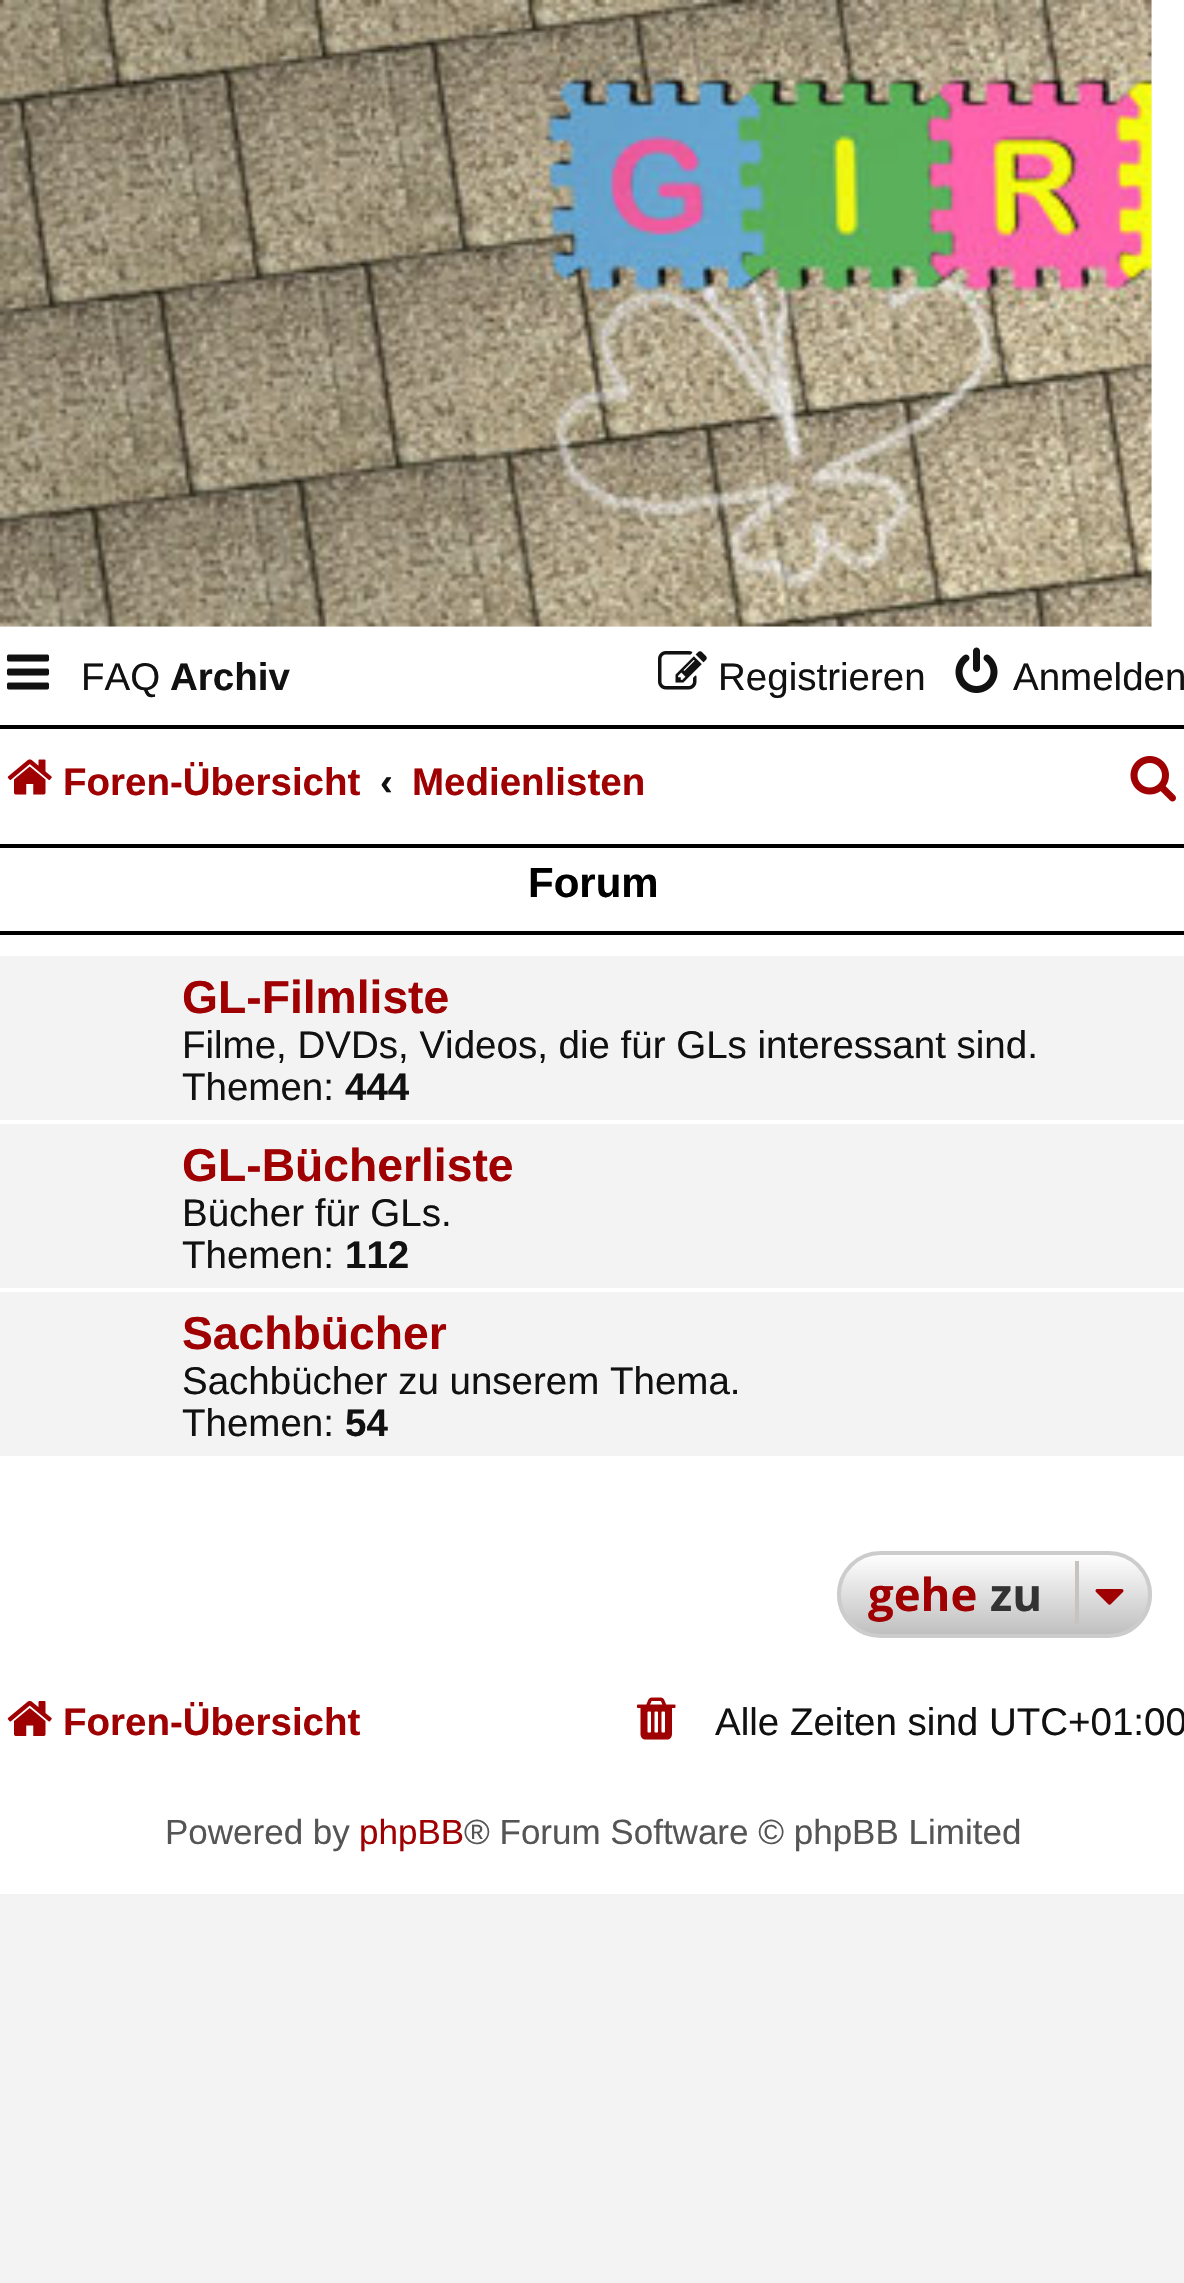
void draw(SkCanvas* canvas) {
  SkPaint paint;
  paint.setAntiAlias(true);
  auto face = [&](const char* family, int weight, float size, bool italic = false) {
    SkFontStyle style(weight, SkFontStyle::kNormal_Width,
      italic ? SkFontStyle::kItalic_Slant : SkFontStyle::kUpright_Slant);
    SkFont result(fontMgr->matchFamilyStyle(family, style), size);
    result.setSubpixel(true);
    return result;
  };
  auto paste = [&](const char* path, float x, float y, float w, float h) {
    auto image = SkImages::DeferredFromEncodedData(SkData::MakeFromFileName(path));
    canvas->drawImageRect(image, SkRect::MakeXYWH(x, y, w, h), SkSamplingOptions());
  };
  auto shape = [&](const char* data, bool evenOdd = false) {
    SkPath result = *SkParsePath::FromSVGString(data);
    if (evenOdd) result.setFillType(SkPathFillType::kEvenOdd);
    return result;
  };
  canvas->clear(0xfff3f3f3);
  paint.setColor(0xffffffff);
  canvas->drawRect(SkRect::MakeXYWH(0, 0, 1184, 1894), paint);
  paint.setColor(0xfff3f3f3);
  canvas->drawRect(SkRect::MakeXYWH(0, 0, 1152, 627), paint);
  paste("img/1.png", 0, 0, 1152, 627);
  paste("img/2.png", 7, 654, 42, 36);
  paste("img/3.png", 658, 651, 49, 39);
  paste("img/4.png", 955, 647, 43, 46);
  paint.setColor(0xff000000);
  canvas->drawRect(SkRect::MakeXYWH(0, 725, 1184, 4), paint);
  paste("img/5.png", 7, 759, 45, 36);
  paste("img/6.png", 1130, 756, 46, 46);
  {
    const struct { float x, y, w, h; SkColor color; } items[] = {
      {0, 844, 1184, 4, 0xff000000},
      {0, 931, 1184, 4, 0xff000000},
      {0, 956, 1184, 500, 0xfff3f3f3},
      {0, 1120, 1184, 4, 0xffffffff},
      {0, 1288, 1184, 4, 0xffffffff},
    };
    for (auto [x, y, w, h, color] : items) {
      paint.setColor(color);
      canvas->drawRect(SkRect::MakeXYWH(x, y, w, h), paint);
    }
  }
  canvas->save();
  canvas->clipPath(shape("M880.5 1551H1108.5C1132.5 1551 1152 1570.5 1152 1594.5C1152 1618.5 1132.5 1638 1108.5 1638H880.5C856.5 1638 837 1618.5 837 1594.5C837 1570.5 856.5 1551 880.5 1551Z"), true);
  {
    const SkColor colors[] = {0xffffffff, 0xffbfbfbf};
    const float stops[] = {0, 1};
    const SkPoint ends[] = {{994, 1554}, {994, 1635}};
    paint.setShader(SkGradientShader::MakeLinear(ends, colors, stops, 2, SkTileMode::kClamp));
    paint.setAlpha(255);
  }
  canvas->drawRect(SkRect::MakeXYWH(837, 1554, 315, 81), paint);
  canvas->restore();
  paint.setStroke(true);
  paint.setStrokeWidth(4);
  paint.setShader(nullptr);
  paint.setColor(0xffcccccc);
  canvas->drawRoundRect(SkRect::MakeXYWH(839, 1553, 311, 83), 41.5f, 41.5f, paint);
  paint.setStroke(false);
  paint.setColor(0xffc7c3bf);
  canvas->drawRect(SkRect::MakeXYWH(1075, 1561, 4, 63), paint);
  paste("img/7.png", 1095, 1589, 29, 16);
  paste("img/8.png", 7, 1700, 45, 36);
  paste("img/9.png", 637, 1697, 39, 43);
  auto f0 = face("Liberation Sans", 400, 38.5f);
  paint.setColor(0xff111111);
  canvas->drawString("FAQ", 81, 690, f0, paint);
  auto f1 = face("Liberation Sans", 700, 38.5f);
  canvas->drawString("Archiv", 170, 690, f1, paint);
  canvas->drawString("Registrieren", 718, 690, f0, paint);
  canvas->drawString("Anmelden", 1013, 690, f0, paint);
  paint.setColor(0xff9f0002);
  canvas->drawString("Foren-Übersicht", 63, 795, f1, paint);
  paint.setColor(0xff111111);
  canvas->drawString("‹", 380, 795, f1, paint);
  paint.setColor(0xff9f0002);
  canvas->drawString("Medienlisten", 412, 795, f1, paint);
  auto f2 = face("Liberation Sans", 700, 42);
  paint.setColor(0xff000000);
  canvas->drawString("Forum", 528, 897, f2, paint);
  auto f3 = face("Liberation Sans", 700, 46.25f);
  paint.setColor(0xff9f0002);
  canvas->drawString("GL-Filmliste", 182, 1013, f3, paint);
  paint.setColor(0xff111111);
  canvas->drawString("Filme, DVDs, Videos, die für GLs interessant sind.", 182, 1058, f0, paint);
  canvas->drawString("Themen:", 182, 1100, f0, paint);
  canvas->drawString("444", 345, 1100, f1, paint);
  paint.setColor(0xff9f0002);
  canvas->drawString("GL-Bücherliste", 182, 1181, f3, paint);
  paint.setColor(0xff111111);
  canvas->drawString("Bücher für GLs.", 182, 1226, f0, paint);
  canvas->drawString("Themen:", 182, 1268, f0, paint);
  canvas->drawString("112", 345, 1268, f1, paint);
  paint.setColor(0xff9f0002);
  canvas->drawString("Sachbücher", 182, 1349, f3, paint);
  paint.setColor(0xff111111);
  canvas->drawString("Sachbücher zu unserem Thema.", 182, 1394, f0, paint);
  canvas->drawString("Themen:", 182, 1436, f0, paint);
  canvas->drawString("54", 345, 1436, f1, paint);
  auto f4 = face("Open Sans", 700, 45.5f);
  paint.setColor(0xff9f0002);
  canvas->drawString("gehe", 868, 1611, f4, paint);
  paint.setColor(0xff333333);
  canvas->drawString("zu", 990, 1611, f4, paint);
  paint.setColor(0xff9f0002);
  canvas->drawString("Foren-Übersicht", 63, 1735, f1, paint);
  paint.setColor(0xff111111);
  canvas->drawString("Alle Zeiten sind UTC+01:00", 715, 1735, f0, paint);
  auto f5 = face("Liberation Sans", 400, 35);
  paint.setColor(0xff555555);
  canvas->drawString("Powered by", 165, 1844, f5, paint);
  paint.setColor(0xff9f0002);
  canvas->drawString("phpBB", 359, 1844, f5, paint);
  paint.setColor(0xff555555);
  canvas->drawString("® Forum Software © phpBB Limited", 464, 1844, f5, paint);
}
